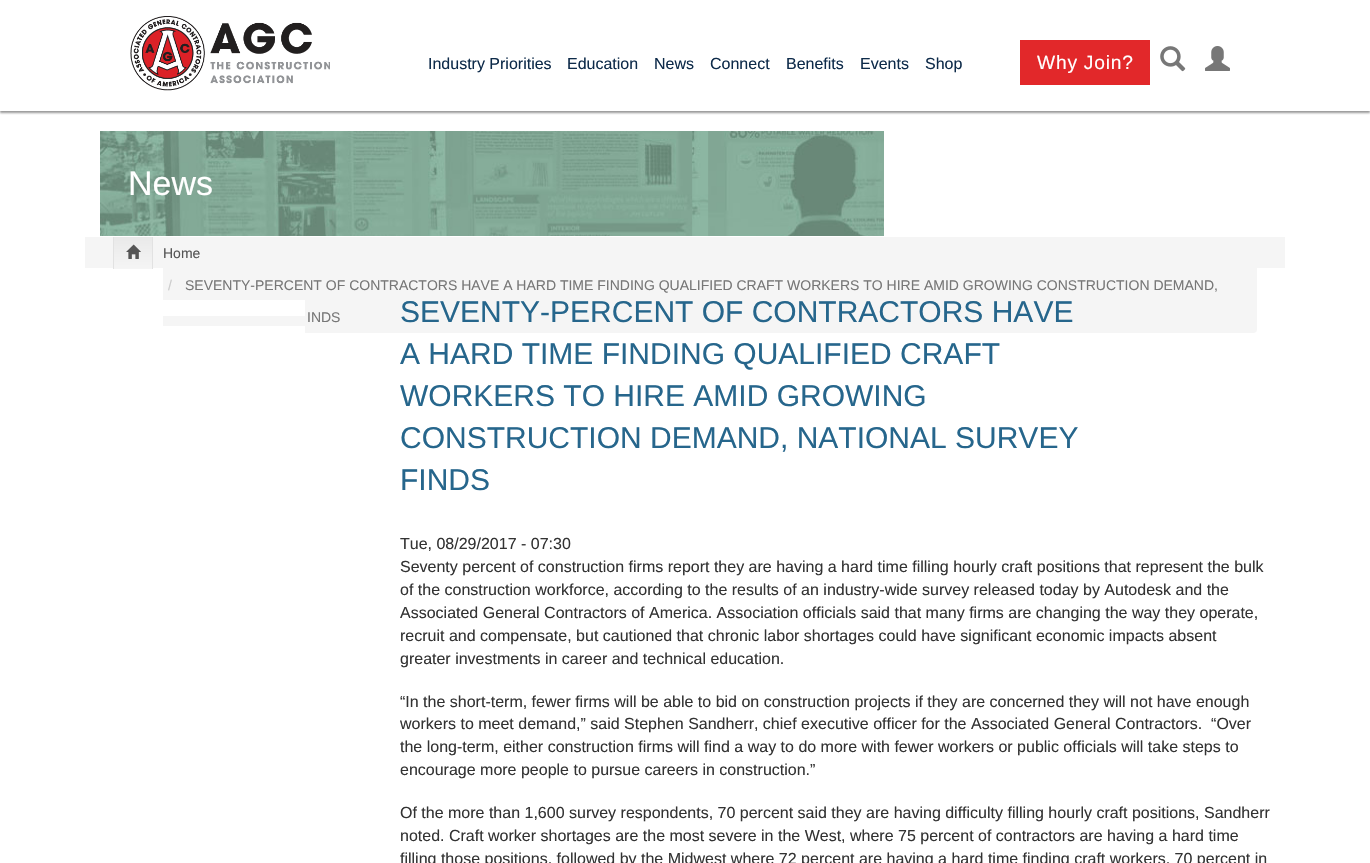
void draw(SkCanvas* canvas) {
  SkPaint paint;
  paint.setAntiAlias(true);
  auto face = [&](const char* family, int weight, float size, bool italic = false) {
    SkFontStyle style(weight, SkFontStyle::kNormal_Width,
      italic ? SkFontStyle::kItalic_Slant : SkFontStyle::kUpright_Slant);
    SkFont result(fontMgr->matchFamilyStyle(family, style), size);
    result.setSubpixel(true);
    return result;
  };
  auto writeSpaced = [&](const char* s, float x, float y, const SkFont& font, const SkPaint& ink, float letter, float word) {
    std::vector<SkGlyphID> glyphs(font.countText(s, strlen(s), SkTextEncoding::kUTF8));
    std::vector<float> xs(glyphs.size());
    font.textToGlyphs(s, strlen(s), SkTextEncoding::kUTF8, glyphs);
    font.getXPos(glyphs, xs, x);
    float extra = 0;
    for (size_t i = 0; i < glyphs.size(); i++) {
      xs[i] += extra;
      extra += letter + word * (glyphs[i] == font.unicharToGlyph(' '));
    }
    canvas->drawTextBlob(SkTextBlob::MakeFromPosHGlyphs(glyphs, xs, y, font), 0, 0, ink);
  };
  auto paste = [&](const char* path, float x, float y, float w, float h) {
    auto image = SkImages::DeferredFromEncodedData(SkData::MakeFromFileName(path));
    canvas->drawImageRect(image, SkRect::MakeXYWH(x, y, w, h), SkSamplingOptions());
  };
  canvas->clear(0xffffffff);
  canvas->save();
  canvas->clipRect(SkRect::MakeXYWH(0, 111, 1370, 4));
  paint.setColor(0xff999999);
  paint.setMaskFilter(SkMaskFilter::MakeBlur(kNormal_SkBlurStyle, 1));
  canvas->drawRect(SkRect::MakeXYWH(0, 17, 1370, 96), paint);
  paint.setMaskFilter(nullptr);
  canvas->restore();
  paste("img/1.png", 130, 16, 200, 75);
  paint.setColor(0xffe2282a);
  canvas->drawRect(SkRect::MakeXYWH(1020, 40, 130, 45), paint);
  paste("img/2.png", 1160, 46, 26, 26);
  paste("img/3.png", 1205, 46, 25, 25);
  paste("img/4.png", 100, 131, 784, 105);
  paint.setColor(0xfff5f5f5);
  canvas->drawRect(SkRect::MakeXYWH(85, 237, 1200, 31), paint);
  {
    const SkColor colors[] = {0xffe9e9e9, 0xfff5f5f5};
    const float stops[] = {0, 1};
    const SkPoint ends[] = {{133, 237}, {133, 269}};
    paint.setShader(SkGradientShader::MakeLinear(ends, colors, stops, 2, SkTileMode::kClamp));
    paint.setAlpha(255);
  }
  canvas->drawRect(SkRect::MakeXYWH(114, 237, 38, 32), paint);
  paint.setShader(nullptr);
  paint.setColor(0xffe2e2e2);
  canvas->drawRect(SkRect::MakeXYWH(152, 237, 1, 32), paint);
  canvas->drawRect(SkRect::MakeXYWH(113, 237, 1, 32), paint);
  paste("img/5.png", 126, 244, 15, 15);
  paint.setColor(0xfff5f5f5);
  canvas->drawRoundRect(SkRect::MakeXYWH(163, 237, 1094, 96), 4, 4, paint);
  paint.setColor(0xffffffff);
  canvas->drawRect(SkRect::MakeXYWH(163, 300, 142, 16), paint);
  canvas->drawRect(SkRect::MakeXYWH(163, 326, 142, 7), paint);
  auto f0 = face("Liberation Sans", 400, 16);
  paint.setColor(0xff0e2b4a);
  {
    const struct { const char* s; float x, y; } items[] = {
      {"Industry Priorities", 428, 69},
      {"Education", 567, 69},
      {"News", 654, 69},
      {"Connect", 710, 69},
      {"Benefits", 786, 69},
      {"Events", 860, 69},
      {"Shop", 925, 69},
    };
    for (auto [s, x, y] : items) {
      canvas->drawString(s, x, y, f0, paint);
    }
  }
  auto f1 = face("Liberation Sans", 400, 19.25f);
  paint.setColor(0xffffffff);
  writeSpaced("Why Join?", 1037, 69, f1, paint, 0.75f, 0);
  auto f2 = face("Liberation Sans", 400, 34);
  canvas->drawString("News", 128, 195, f2, paint);
  auto f3 = face("Liberation Sans", 400, 14);
  paint.setColor(0xff555555);
  canvas->drawString("Home", 163, 258, f3, paint);
  paint.setColor(0xffcccccc);
  canvas->drawString("/", 168, 290, f3, paint);
  paint.setColor(0xff777777);
  canvas->drawString("SEVENTY-PERCENT OF CONTRACTORS HAVE A HARD TIME FINDING QUALIFIED CRAFT WORKERS TO HIRE AMID GROWING CONSTRUCTION DEMAND,", 185, 290, f3, paint);
  canvas->drawString("INDS", 307, 322, f3, paint);
  auto f4 = face("Liberation Sans", 400, 30);
  paint.setColor(0xff26668c);
  {
    const struct { const char* s; float x, y; } items[] = {
      {"SEVENTY-PERCENT OF CONTRACTORS HAVE", 400, 322},
      {"A HARD TIME FINDING QUALIFIED CRAFT", 400, 364},
      {"WORKERS TO HIRE AMID GROWING", 400, 406},
      {"CONSTRUCTION DEMAND, NATIONAL SURVEY", 400, 448},
      {"FINDS", 400, 490},
    };
    for (auto [s, x, y] : items) {
      canvas->drawString(s, x, y, f4, paint);
    }
  }
  paint.setColor(0xff333333);
  {
    const struct { const char* s; float x, y; } items[] = {
      {"Tue, 08/29/2017 - 07:30", 400, 549},
      {"Seventy percent of construction firms report they are having a hard time filling hourly craft positions that represent the bulk", 400, 572},
      {"of the construction workforce, according to the results of an industry-wide survey released today by Autodesk and the", 400, 595},
      {"Associated General Contractors of America. Association officials said that many firms are changing the way they operate,", 400, 618},
      {"recruit and compensate, but cautioned that chronic labor shortages could have significant economic impacts absent", 400, 641},
      {"greater investments in career and technical education.", 400, 664},
      {"“In the short-term, fewer firms will be able to bid on construction projects if they are concerned they will not have enough", 400, 707},
      {"workers to meet demand,” said Stephen Sandherr, chief executive officer for the Associated General Contractors.  “Over", 400, 729},
      {"the long-term, either construction firms will find a way to do more with fewer workers or public officials will take steps to", 400, 752},
      {"encourage more people to pursue careers in construction.”", 400, 775},
      {"Of the more than 1,600 survey respondents, 70 percent said they are having difficulty filling hourly craft positions, Sandherr", 400, 818},
      {"noted. Craft worker shortages are the most severe in the West, where 75 percent of contractors are having a hard time", 400, 841},
      {"filling those positions, followed by the Midwest where 72 percent are having a hard time finding craft workers, 70 percent in", 400, 864},
    };
    for (auto [s, x, y] : items) {
      canvas->drawString(s, x, y, f0, paint);
    }
  }
}
